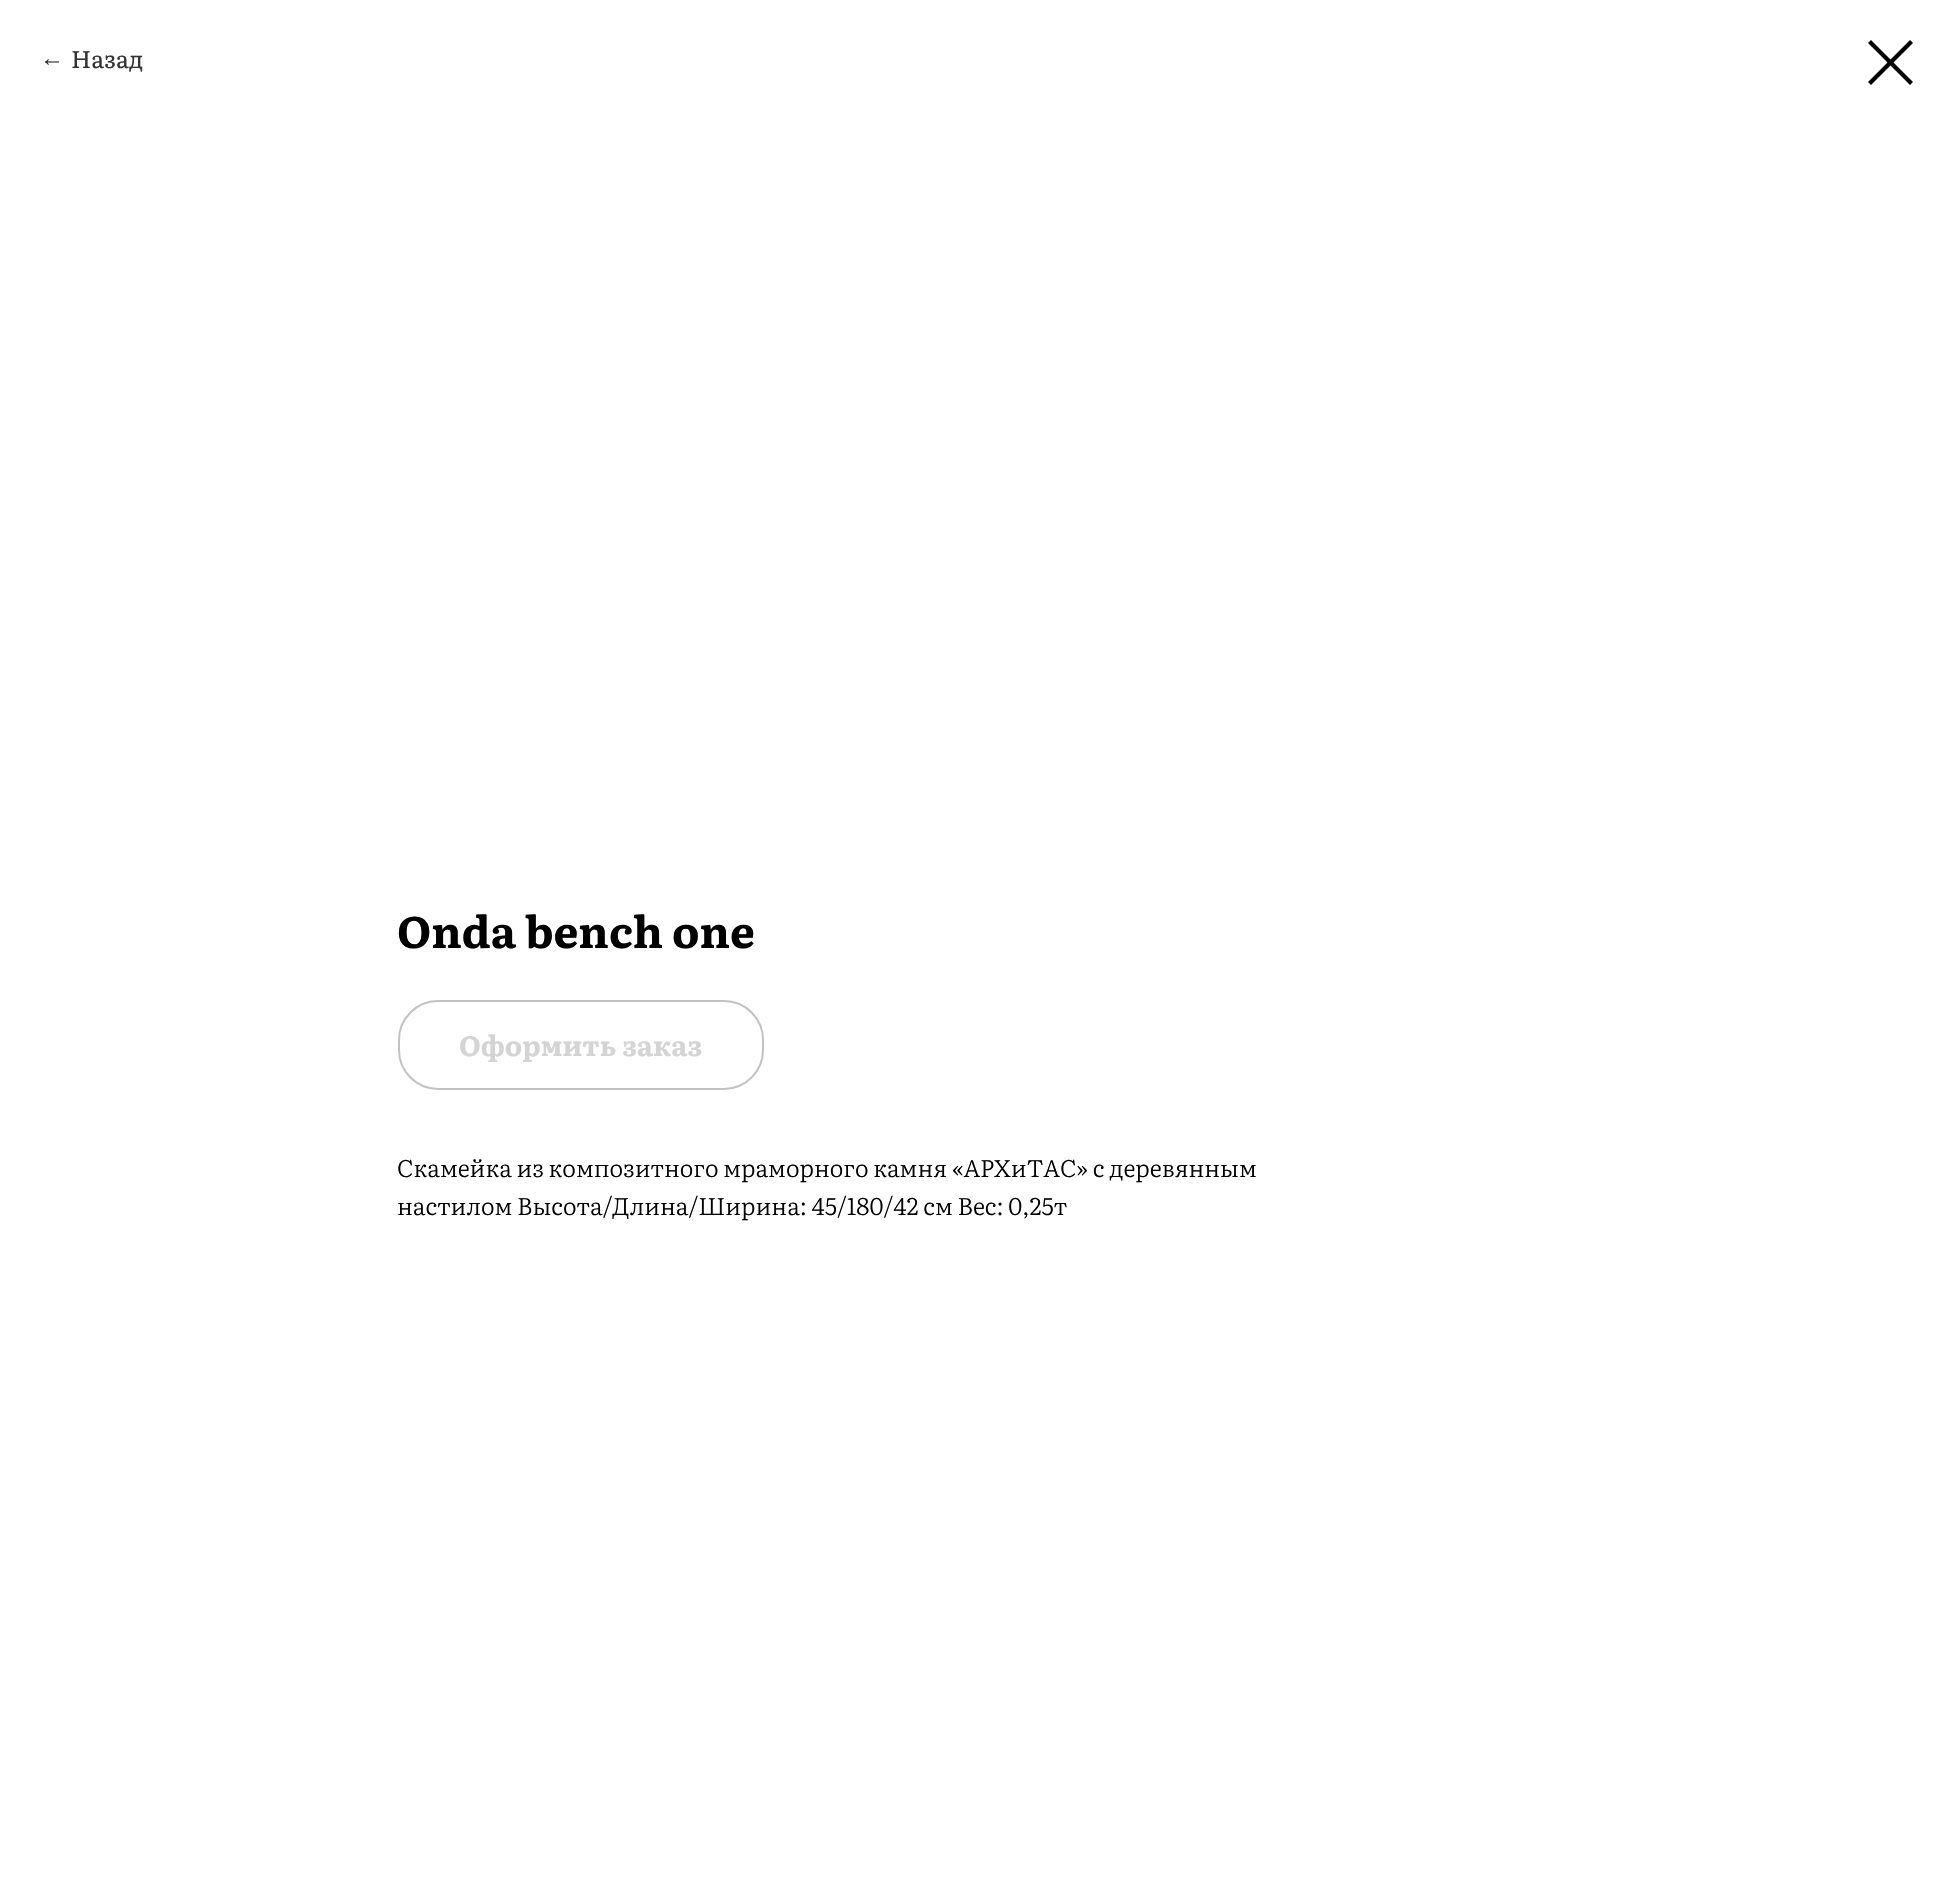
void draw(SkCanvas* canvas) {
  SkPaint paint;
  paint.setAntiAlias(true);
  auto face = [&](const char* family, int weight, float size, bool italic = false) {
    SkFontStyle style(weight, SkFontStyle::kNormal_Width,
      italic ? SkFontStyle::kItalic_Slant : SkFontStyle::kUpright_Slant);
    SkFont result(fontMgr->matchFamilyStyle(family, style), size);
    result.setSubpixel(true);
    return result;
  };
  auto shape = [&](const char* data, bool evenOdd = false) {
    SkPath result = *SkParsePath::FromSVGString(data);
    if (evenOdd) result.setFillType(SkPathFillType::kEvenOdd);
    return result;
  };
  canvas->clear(0xffffffff);
  paint.setColor(0xff000000);
  canvas->drawPath(shape("M1868 43L1871 40L1913 82L1910 85Z", true), paint);
  canvas->drawPath(shape("M1910 40L1913 43L1871 85L1868 82Z", true), paint);
  paint.setStroke(true);
  paint.setStrokeWidth(2);
  paint.setColor(0xffc2c2c2);
  canvas->drawRoundRect(SkRect::MakeXYWH(399, 1001, 364, 88), 39, 39, paint);
  auto f0 = face("Liberation Sans", 400, 24);
  paint.setStroke(false);
  paint.setColor(0xff333333);
  canvas->drawString("←", 40, 66, f0, paint);
  auto f1 = face("Literata", 400, 24);
  canvas->drawString("Назад", 71, 68, f1, paint);
  auto f2 = face("Literata", 700, 44);
  paint.setColor(0xff000000);
  canvas->drawString("Onda bench one", 397, 948, f2, paint);
  auto f3 = face("Literata", 700, 28);
  paint.setColor(0xffd4d4d4);
  canvas->drawString("Оформить заказ", 459, 1056, f3, paint);
  auto f4 = face("Literata", 300, 24);
  paint.setColor(0xff000000);
  canvas->drawString("Скамейка из композитного мраморного камня «АРХиТАС» c деревянным", 397, 1177, f4, paint);
  canvas->drawString("настилом Высота/Длина/Ширина: 45/180/42 см Вес: 0,25т", 397, 1215, f4, paint);
}
